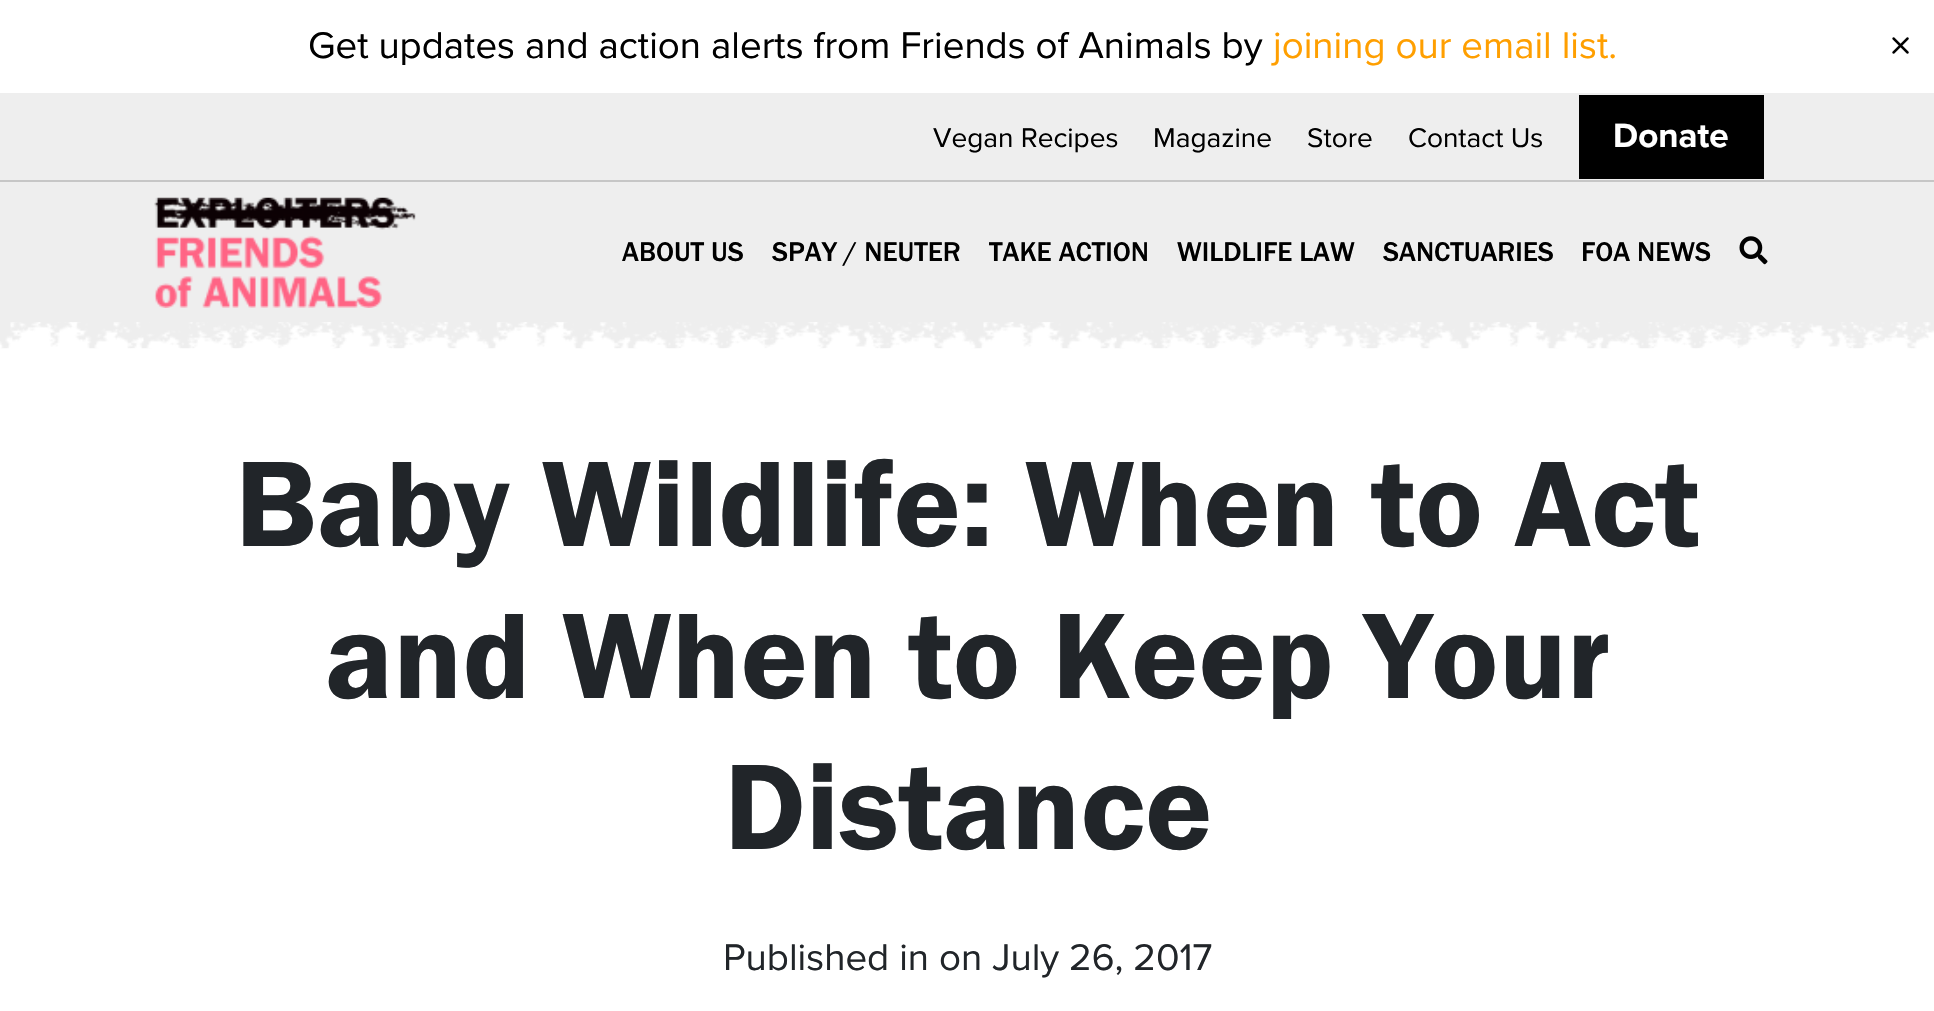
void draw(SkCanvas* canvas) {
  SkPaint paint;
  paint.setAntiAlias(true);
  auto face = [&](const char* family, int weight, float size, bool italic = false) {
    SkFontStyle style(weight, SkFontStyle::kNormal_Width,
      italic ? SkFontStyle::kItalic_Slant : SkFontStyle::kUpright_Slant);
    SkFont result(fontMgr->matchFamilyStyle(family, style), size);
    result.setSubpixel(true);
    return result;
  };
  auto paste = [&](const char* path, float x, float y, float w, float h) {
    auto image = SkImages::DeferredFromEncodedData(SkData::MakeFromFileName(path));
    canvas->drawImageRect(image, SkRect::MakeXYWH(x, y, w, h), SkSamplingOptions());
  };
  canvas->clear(0xffffffff);
  paint.setColor(0xffeeeeee);
  canvas->drawRect(SkRect::MakeXYWH(0, 93, 1934, 229), paint);
  paste("img/1.png", 1892, 37, 17, 17);
  paint.setColor(0xffc6c6c6);
  canvas->drawRect(SkRect::MakeXYWH(0, 180, 1934, 2), paint);
  paint.setColor(0xff000000);
  canvas->drawRect(SkRect::MakeXYWH(1579, 95, 185, 84), paint);
  paste("img/2.png", 154, 197, 262, 111);
  paste("img/3.png", 1739, 236, 29, 29);
  paste("img/4.png", 0, 322, 1934, 27);
  auto f0 = face("Proxima Nova", 400, 38.5f);
  canvas->drawString("Get updates and action alerts from Friends of Animals by", 308, 58, f0, paint);
  paint.setColor(0xffff9f00);
  canvas->drawString("joining our email list.", 1273, 58, f0, paint);
  auto f1 = face("Proxima Nova", 400, 28);
  paint.setColor(0xff000000);
  {
    const struct { const char* s; float x, y; } items[] = {
      {"Vegan Recipes", 933, 147},
      {"Magazine", 1153, 147},
      {"Store", 1307, 147},
      {"Contact Us", 1408, 147},
    };
    for (auto [s, x, y] : items) {
      canvas->drawString(s, x, y, f1, paint);
    }
  }
  auto f2 = face("Proxima Nova", 700, 35);
  paint.setColor(0xffffffff);
  canvas->drawString("Donate", 1613, 147, f2, paint);
  auto f3 = face("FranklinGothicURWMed", 400, 28);
  paint.setColor(0xff000000);
  {
    const struct { const char* s; float x, y; } items[] = {
      {"ABOUT US", 622, 261},
      {"SPAY / NEUTER", 772, 261},
      {"TAKE ACTION", 989, 261},
      {"WILDLIFE LAW", 1177, 261},
      {"SANCTUARIES", 1383, 261},
      {"FOA NEWS", 1581, 261},
    };
    for (auto [s, x, y] : items) {
      canvas->drawString(s, x, y, f3, paint);
    }
  }
  auto f4 = face("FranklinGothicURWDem", 400, 126);
  paint.setColor(0xff212529);
  {
    const struct { const char* s; float x, y; } items[] = {
      {"Baby Wildlife: When to Act", 235, 546},
      {"and When to Keep Your", 325, 698},
      {"Distance", 724, 849},
    };
    for (auto [s, x, y] : items) {
      canvas->drawString(s, x, y, f4, paint);
    }
  }
  canvas->drawString("Published in on July 26, 2017", 723, 970, f0, paint);
}
